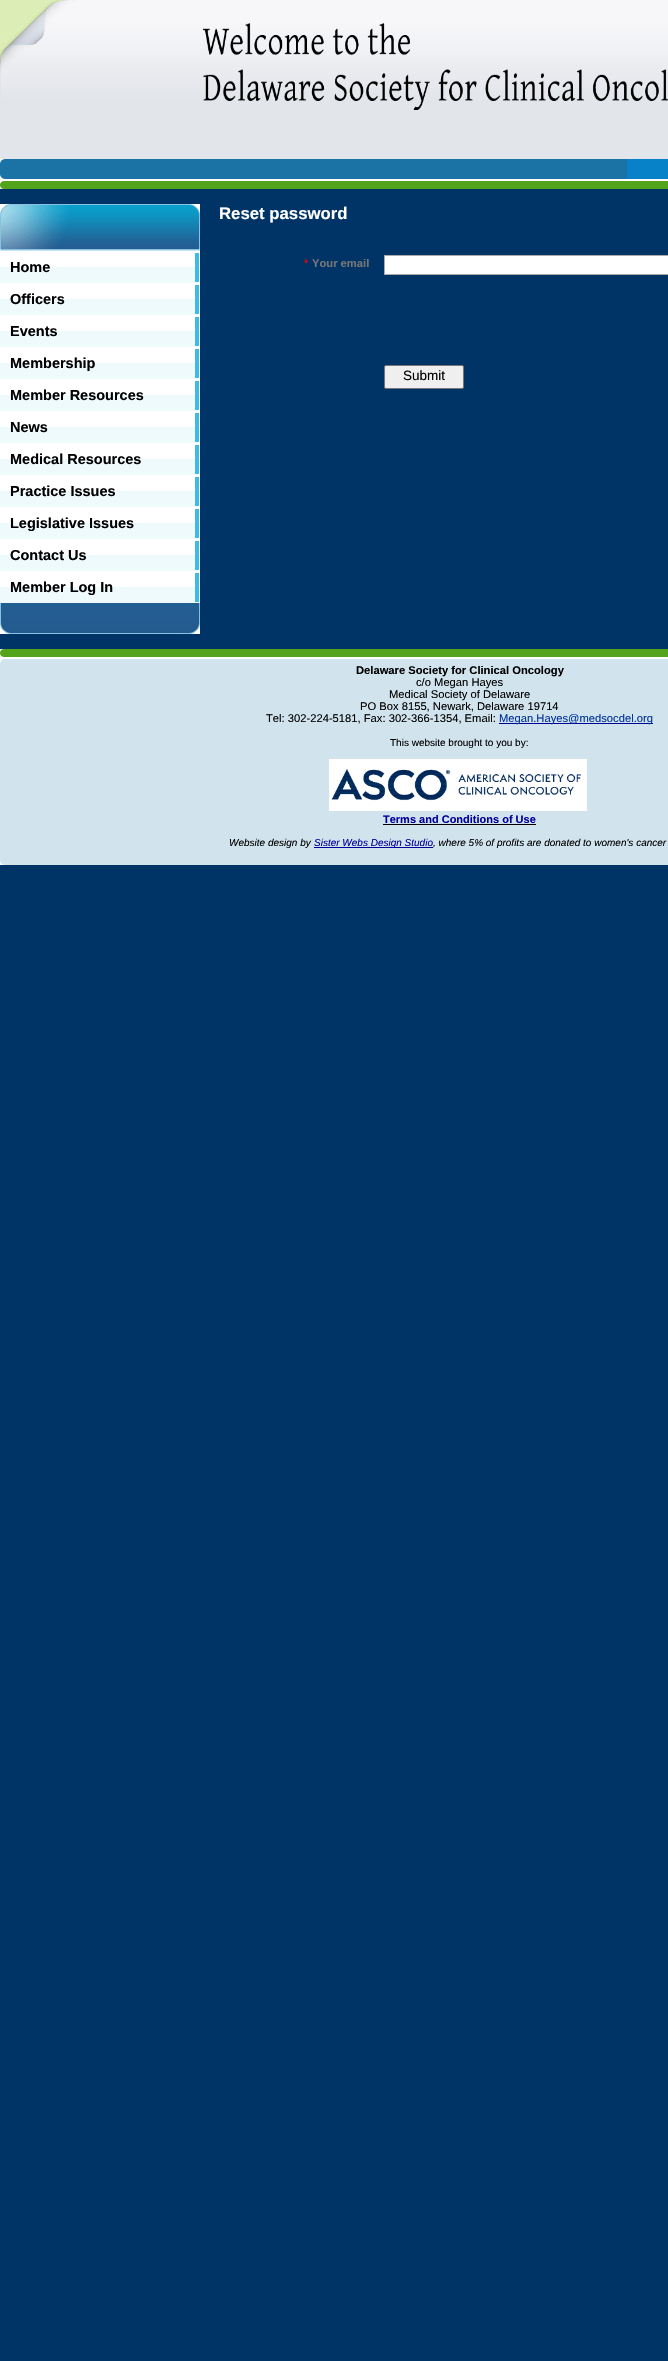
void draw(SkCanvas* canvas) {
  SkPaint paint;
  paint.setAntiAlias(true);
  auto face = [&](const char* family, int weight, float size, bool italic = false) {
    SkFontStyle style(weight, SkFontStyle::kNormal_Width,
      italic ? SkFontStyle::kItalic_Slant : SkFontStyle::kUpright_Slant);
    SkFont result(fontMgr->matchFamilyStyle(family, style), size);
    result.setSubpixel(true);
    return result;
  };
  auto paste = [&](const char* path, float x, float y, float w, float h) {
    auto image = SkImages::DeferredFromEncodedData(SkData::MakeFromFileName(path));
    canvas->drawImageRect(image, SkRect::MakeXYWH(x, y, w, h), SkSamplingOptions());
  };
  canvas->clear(0xff003366);
  paste("img/1.png", 0, 0, 668, 159);
  paste("img/2.png", 203, 23, 465, 87);
  paste("img/3.png", 10, 159, 658, 30);
  paste("img/4.png", 0, 159, 10, 30);
  paste("img/5.png", 0, 603, 200, 31);
  paste("img/6.png", 69, 204, 121, 46);
  paste("img/7.png", 0, 204, 69, 46);
  paste("img/8.png", 190, 204, 10, 46);
  {
    const struct { float x, y, w, h; SkColor color; } items[] = {
      {0, 267, 200, 16, 0xffeffafd},
      {0, 251, 200, 16, 0xffffffff},
      {0, 250, 200, 1, 0xffc7e6ef},
      {195, 253, 4, 29, 0xff3ebae7},
      {0, 299, 200, 16, 0xffeffafd},
      {0, 283, 200, 16, 0xffffffff},
      {195, 285, 4, 29, 0xff3ebae7},
      {0, 331, 200, 16, 0xffeffafd},
      {0, 315, 200, 16, 0xffffffff},
      {195, 317, 4, 29, 0xff3ebae7},
      {0, 363, 200, 16, 0xffeffafd},
      {0, 347, 200, 16, 0xffffffff},
      {195, 349, 4, 29, 0xff3ebae7},
      {0, 395, 200, 16, 0xffeffafd},
      {0, 379, 200, 16, 0xffffffff},
      {195, 381, 4, 29, 0xff3ebae7},
      {0, 427, 200, 16, 0xffeffafd},
      {0, 411, 200, 16, 0xffffffff},
      {195, 413, 4, 29, 0xff3ebae7},
      {0, 459, 200, 16, 0xffeffafd},
      {0, 443, 200, 16, 0xffffffff},
      {195, 445, 4, 29, 0xff3ebae7},
      {0, 491, 200, 16, 0xffeffafd},
      {0, 475, 200, 16, 0xffffffff},
      {195, 477, 4, 29, 0xff3ebae7},
      {0, 523, 200, 16, 0xffeffafd},
      {0, 507, 200, 16, 0xffffffff},
      {195, 509, 4, 29, 0xff3ebae7},
      {0, 555, 200, 16, 0xffeffafd},
      {0, 539, 200, 16, 0xffffffff},
      {195, 541, 4, 29, 0xff3ebae7},
      {0, 587, 200, 16, 0xffeffafd},
      {0, 571, 200, 16, 0xffffffff},
      {195, 573, 4, 29, 0xff3ebae7},
    };
    for (auto [x, y, w, h, color] : items) {
      paint.setColor(color);
      canvas->drawRect(SkRect::MakeXYWH(x, y, w, h), paint);
    }
  }
  paint.setColor(0xffffffff);
  canvas->drawRect(SkRect::MakeXYWH(384.5f, 255.5f, 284, 19), paint);
  paint.setStroke(true);
  paint.setStrokeWidth(1);
  paint.setColor(0xffaaaaaa);
  canvas->drawRect(SkRect::MakeXYWH(384.5f, 255.5f, 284, 19), paint);
  paint.setStroke(false);
  paint.setColor(0xffefefef);
  canvas->drawRoundRect(SkRect::MakeXYWH(384.5f, 365.5f, 79, 23), 1.5f, 1.5f, paint);
  paint.setStroke(true);
  paint.setColor(0xff767676);
  canvas->drawRoundRect(SkRect::MakeXYWH(384.5f, 365.5f, 79, 23), 1.5f, 1.5f, paint);
  paste("img/9.png", 5, 649, 663, 14);
  paste("img/10.png", 0, 649, 5, 14);
  paint.setStroke(false);
  paint.setColor(0xffd1e3ed);
  canvas->drawRect(SkRect::MakeXYWH(0, 663, 668, 202), paint);
  paste("img/11.png", 0, 861, 5, 4);
  paint.setColor(0xff000099);
  canvas->drawRect(SkRect::MakeXYWH(499, 723, 154, 1), paint);
  paste("img/12.png", 329, 759, 258, 52);
  paint.setColor(0xff000000);
  canvas->drawRect(SkRect::MakeXYWH(383, 824, 153, 1), paint);
  paint.setColor(0xff000099);
  canvas->drawRect(SkRect::MakeXYWH(314, 847, 119, 1), paint);
  auto f0 = face("Liberation Sans", 700, 14.5f);
  paint.setColor(0xff000000);
  {
    const struct { const char* s; float x, y; } items[] = {
      {"Home", 10, 272},
      {"Officers", 10, 304},
      {"Events", 10, 336},
      {"Membership", 10, 368},
      {"Member Resources", 10, 400},
      {"News", 10, 432},
      {"Medical Resources", 10, 464},
      {"Practice Issues", 10, 496},
      {"Legislative Issues", 10, 528},
      {"Contact Us", 10, 560},
      {"Member Log In", 10, 592},
    };
    for (auto [s, x, y] : items) {
      canvas->drawString(s, x, y, f0, paint);
    }
  }
  auto f1 = face("Liberation Sans", 700, 16.75f);
  paint.setColor(0xffffffff);
  canvas->drawString("Reset password", 219, 219, f1, paint);
  auto f2 = face("Liberation Sans", 400, 11.2f);
  paint.setColor(0xffff0000);
  canvas->drawString("*", 304, 267, f2, paint);
  auto f3 = face("Liberation Sans", 700, 11.2f);
  paint.setColor(0xff777777);
  canvas->drawString("Your email", 312, 267, f3, paint);
  auto f4 = face("Liberation Sans", 400, 13.5f);
  paint.setColor(0xff000000);
  canvas->drawString("Submit", 403, 380, f4, paint);
  canvas->drawString("Delaware Society for Clinical Oncology", 356, 674, f3, paint);
  {
    const struct { const char* s; float x, y; } items[] = {
      {"c/o Megan Hayes", 416, 686},
      {"Medical Society of Delaware", 389, 698},
      {"PO Box 8155, Newark, Delaware 19714", 360, 710},
      {"Tel: 302-224-5181, Fax: 302-366-1354, Email:", 266, 722},
    };
    for (auto [s, x, y] : items) {
      canvas->drawString(s, x, y, f2, paint);
    }
  }
  paint.setColor(0xff00339a);
  canvas->drawString("Megan.Hayes@medsocdel.org", 499, 722, f2, paint);
  auto f5 = face("Liberation Sans", 400, 10);
  paint.setColor(0xff000000);
  canvas->drawString("This website brought to you by:", 390, 746, f5, paint);
  auto f6 = face("Liberation Sans", 700, 11);
  paint.setColor(0xff000099);
  canvas->drawString("Terms and Conditions of Use", 383, 823, f6, paint);
  auto f7 = face("Liberation Sans", 400, 10, true);
  paint.setColor(0xff000000);
  canvas->drawString("Website design by", 229, 846, f7, paint);
  paint.setColor(0xff000099);
  canvas->drawString("Sister Webs Design Studio", 314, 846, f7, paint);
  paint.setColor(0xff000000);
  canvas->drawString(", where 5% of profits are donated to women's cancer", 433, 846, f7, paint);
}
